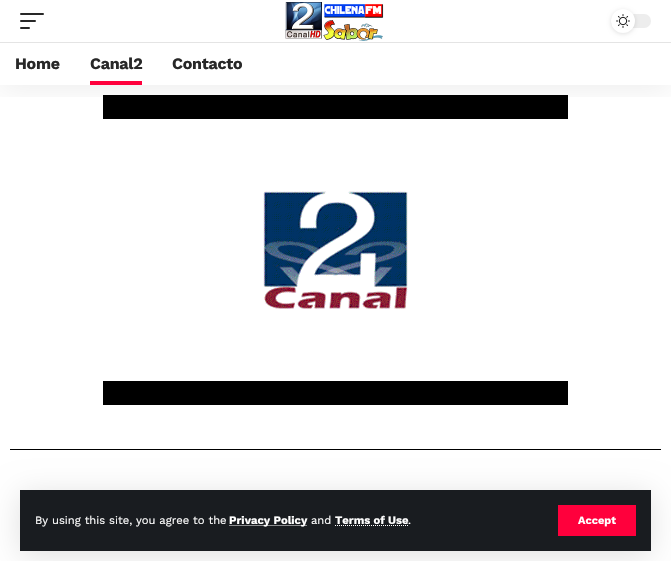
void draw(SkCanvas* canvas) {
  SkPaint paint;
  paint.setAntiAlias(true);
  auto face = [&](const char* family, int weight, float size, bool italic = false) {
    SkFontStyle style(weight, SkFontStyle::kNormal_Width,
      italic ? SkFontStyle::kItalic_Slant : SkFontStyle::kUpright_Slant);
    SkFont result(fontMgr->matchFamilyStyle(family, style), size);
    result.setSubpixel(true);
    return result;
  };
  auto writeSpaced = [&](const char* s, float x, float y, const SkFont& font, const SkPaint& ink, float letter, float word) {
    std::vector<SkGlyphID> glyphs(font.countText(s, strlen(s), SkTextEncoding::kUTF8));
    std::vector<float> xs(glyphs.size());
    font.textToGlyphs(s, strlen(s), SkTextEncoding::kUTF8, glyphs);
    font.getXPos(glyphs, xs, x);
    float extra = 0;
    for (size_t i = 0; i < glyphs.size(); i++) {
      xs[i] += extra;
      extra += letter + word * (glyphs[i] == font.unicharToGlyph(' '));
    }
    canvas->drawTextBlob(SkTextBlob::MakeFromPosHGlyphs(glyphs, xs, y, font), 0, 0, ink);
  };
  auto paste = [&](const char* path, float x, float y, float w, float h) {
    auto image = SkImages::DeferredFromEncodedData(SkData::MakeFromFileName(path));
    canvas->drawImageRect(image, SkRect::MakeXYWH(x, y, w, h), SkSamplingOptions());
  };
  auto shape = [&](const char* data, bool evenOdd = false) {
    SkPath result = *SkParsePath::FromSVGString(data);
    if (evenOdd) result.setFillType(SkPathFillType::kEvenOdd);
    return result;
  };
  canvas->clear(0xffffffff);
  paste("img/3.png", 103, 95, 465, 310);
  canvas->save();
  canvas->clipRect(SkRect::MakeXYWH(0, 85, 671, 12));
  paint.setColor(0x12000000);
  paint.setMaskFilter(SkMaskFilter::MakeBlur(kNormal_SkBlurStyle, 15));
  canvas->drawRect(SkRect::MakeXYWH(0, 4, 671, 85), paint);
  paint.setMaskFilter(nullptr);
  canvas->restore();
  paint.setColor(0xff282828);
  canvas->drawRoundRect(SkRect::MakeXYWH(20, 13, 24, 2), 1, 1, paint);
  canvas->drawRoundRect(SkRect::MakeXYWH(20, 20, 16, 2), 1, 1, paint);
  canvas->drawRoundRect(SkRect::MakeXYWH(20, 27, 10, 2), 1, 1, paint);
  paste("img/1.png", 285, 2, 99, 39);
  paint.setColor(0xffededed);
  canvas->drawRoundRect(SkRect::MakeXYWH(611, 14, 40, 14), 7, 7, paint);
  paint.setColor(0x1f000000);
  paint.setMaskFilter(SkMaskFilter::MakeBlur(kNormal_SkBlurStyle, 2));
  canvas->drawRoundRect(SkRect::MakeXYWH(611, 10, 24, 24), 12, 12, paint);
  paint.setMaskFilter(nullptr);
  paint.setColor(0xffffffff);
  canvas->drawCircle(623, 21, 12, paint);
  paste("img/2.png", 616, 14, 14, 14);
  {
    const struct { float x, y, w, h; SkColor color; } items[] = {
      {0, 42, 671, 1, 0xffe4e4e4},
      {90, 81, 52, 4, 0xffff003c},
      {10, 449, 651, 1, 0xff000000},
    };
    for (auto [x, y, w, h, color] : items) {
      paint.setColor(color);
      canvas->drawRect(SkRect::MakeXYWH(x, y, w, h), paint);
    }
  }
  paint.setColor(0x1f000000);
  paint.setMaskFilter(SkMaskFilter::MakeBlur(kNormal_SkBlurStyle, 15));
  canvas->drawRect(SkRect::MakeXYWH(20, 494, 631, 61), paint);
  paint.setMaskFilter(nullptr);
  paint.setColor(0xff191c20);
  canvas->drawRect(SkRect::MakeXYWH(20, 490, 631, 61), paint);
  paint.setStroke(true);
  paint.setStrokeWidth(1);
  paint.setColor(0xffffffff);
  paint.setPathEffect(SkDashPathEffect::Make({{1, 1}}, 0));
  canvas->drawPath(shape("M229.5 525.5H307"), paint);
  paint.setPathEffect(nullptr);
  paint.setPathEffect(SkDashPathEffect::Make({{1, 1}}, 0));
  canvas->drawPath(shape("M335 525.5H408.5"), paint);
  paint.setPathEffect(nullptr);
  paint.setStroke(false);
  paint.setColor(0xffff003c);
  canvas->drawRect(SkRect::MakeXYWH(558, 505, 78, 31), paint);
  auto f0 = face("Work Sans", 700, 16);
  paint.setColor(0xff282828);
  {
    const struct { const char* s; float x, y; } items[] = {
      {"Home", 15, 69},
      {"Canal2", 90, 69},
      {"Contacto", 172, 69},
    };
    for (auto [s, x, y] : items) {
      writeSpaced(s, x, y, f0, paint, -0.25f, 0);
    }
  }
  auto f1 = face("Work Sans", 400, 11.25f);
  paint.setColor(0xffffffff);
  canvas->drawString("By using this site, you agree to the", 35, 524, f1, paint);
  auto f2 = face("Work Sans", 700, 11.25f);
  canvas->drawString("Privacy Policy", 229, 524, f2, paint);
  canvas->drawString("and", 311, 524, f1, paint);
  canvas->drawString("Terms of Use", 335, 524, f2, paint);
  canvas->drawString(".", 408, 524, f1, paint);
  auto f3 = face("Work Sans", 700, 11);
  canvas->drawString("Accept", 578, 524, f3, paint);
}
